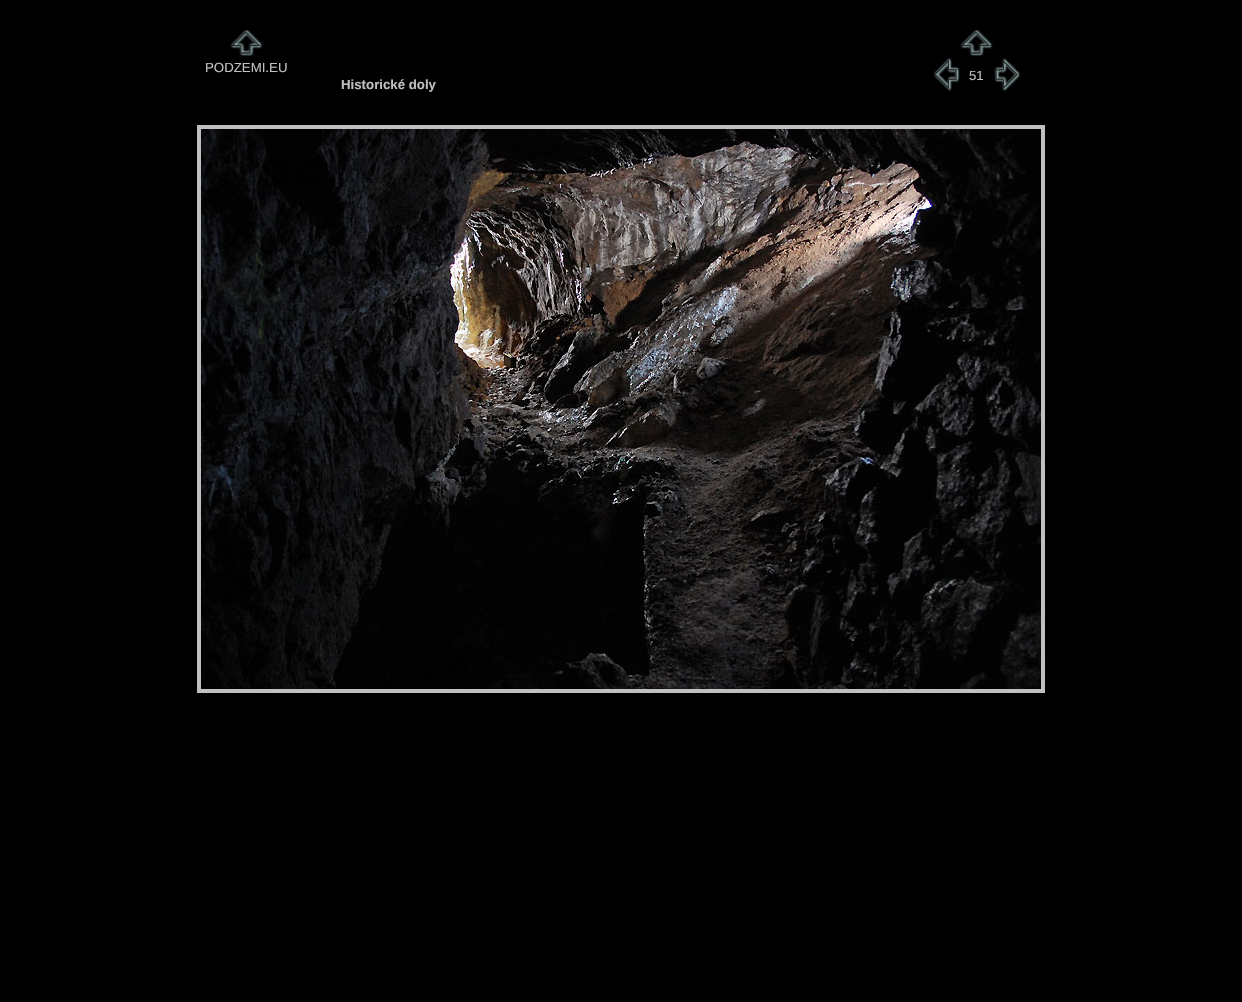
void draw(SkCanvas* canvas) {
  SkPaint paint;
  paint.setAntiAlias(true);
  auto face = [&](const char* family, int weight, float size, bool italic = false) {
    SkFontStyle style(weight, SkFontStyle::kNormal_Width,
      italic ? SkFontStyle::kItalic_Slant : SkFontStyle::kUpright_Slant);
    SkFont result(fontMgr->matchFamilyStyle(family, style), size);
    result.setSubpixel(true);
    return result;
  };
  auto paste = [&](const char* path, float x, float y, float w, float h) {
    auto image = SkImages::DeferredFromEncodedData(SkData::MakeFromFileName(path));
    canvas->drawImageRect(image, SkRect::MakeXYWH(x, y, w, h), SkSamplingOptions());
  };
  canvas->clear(0xff000000);
  paste("img/1.png", 230, 30, 33, 26);
  paste("img/1.png", 960, 30, 33, 26);
  paste("img/2.png", 933, 58, 27, 34);
  paste("img/3.png", 994, 58, 27, 34);
  paint.setColor(0xffc0c0c0);
  canvas->drawRect(SkRect::MakeXYWH(197, 125, 848, 568), paint);
  paste("img/4.png", 201, 129, 840, 560);
  auto f0 = face("Liberation Sans", 400, 13.25f);
  canvas->drawString("PODZEMI.EU", 205, 72, f0, paint);
  canvas->drawString("51", 969, 80, f0, paint);
  auto f1 = face("Liberation Sans", 700, 13.25f);
  canvas->drawString("Historické doly", 341, 89, f1, paint);
}
